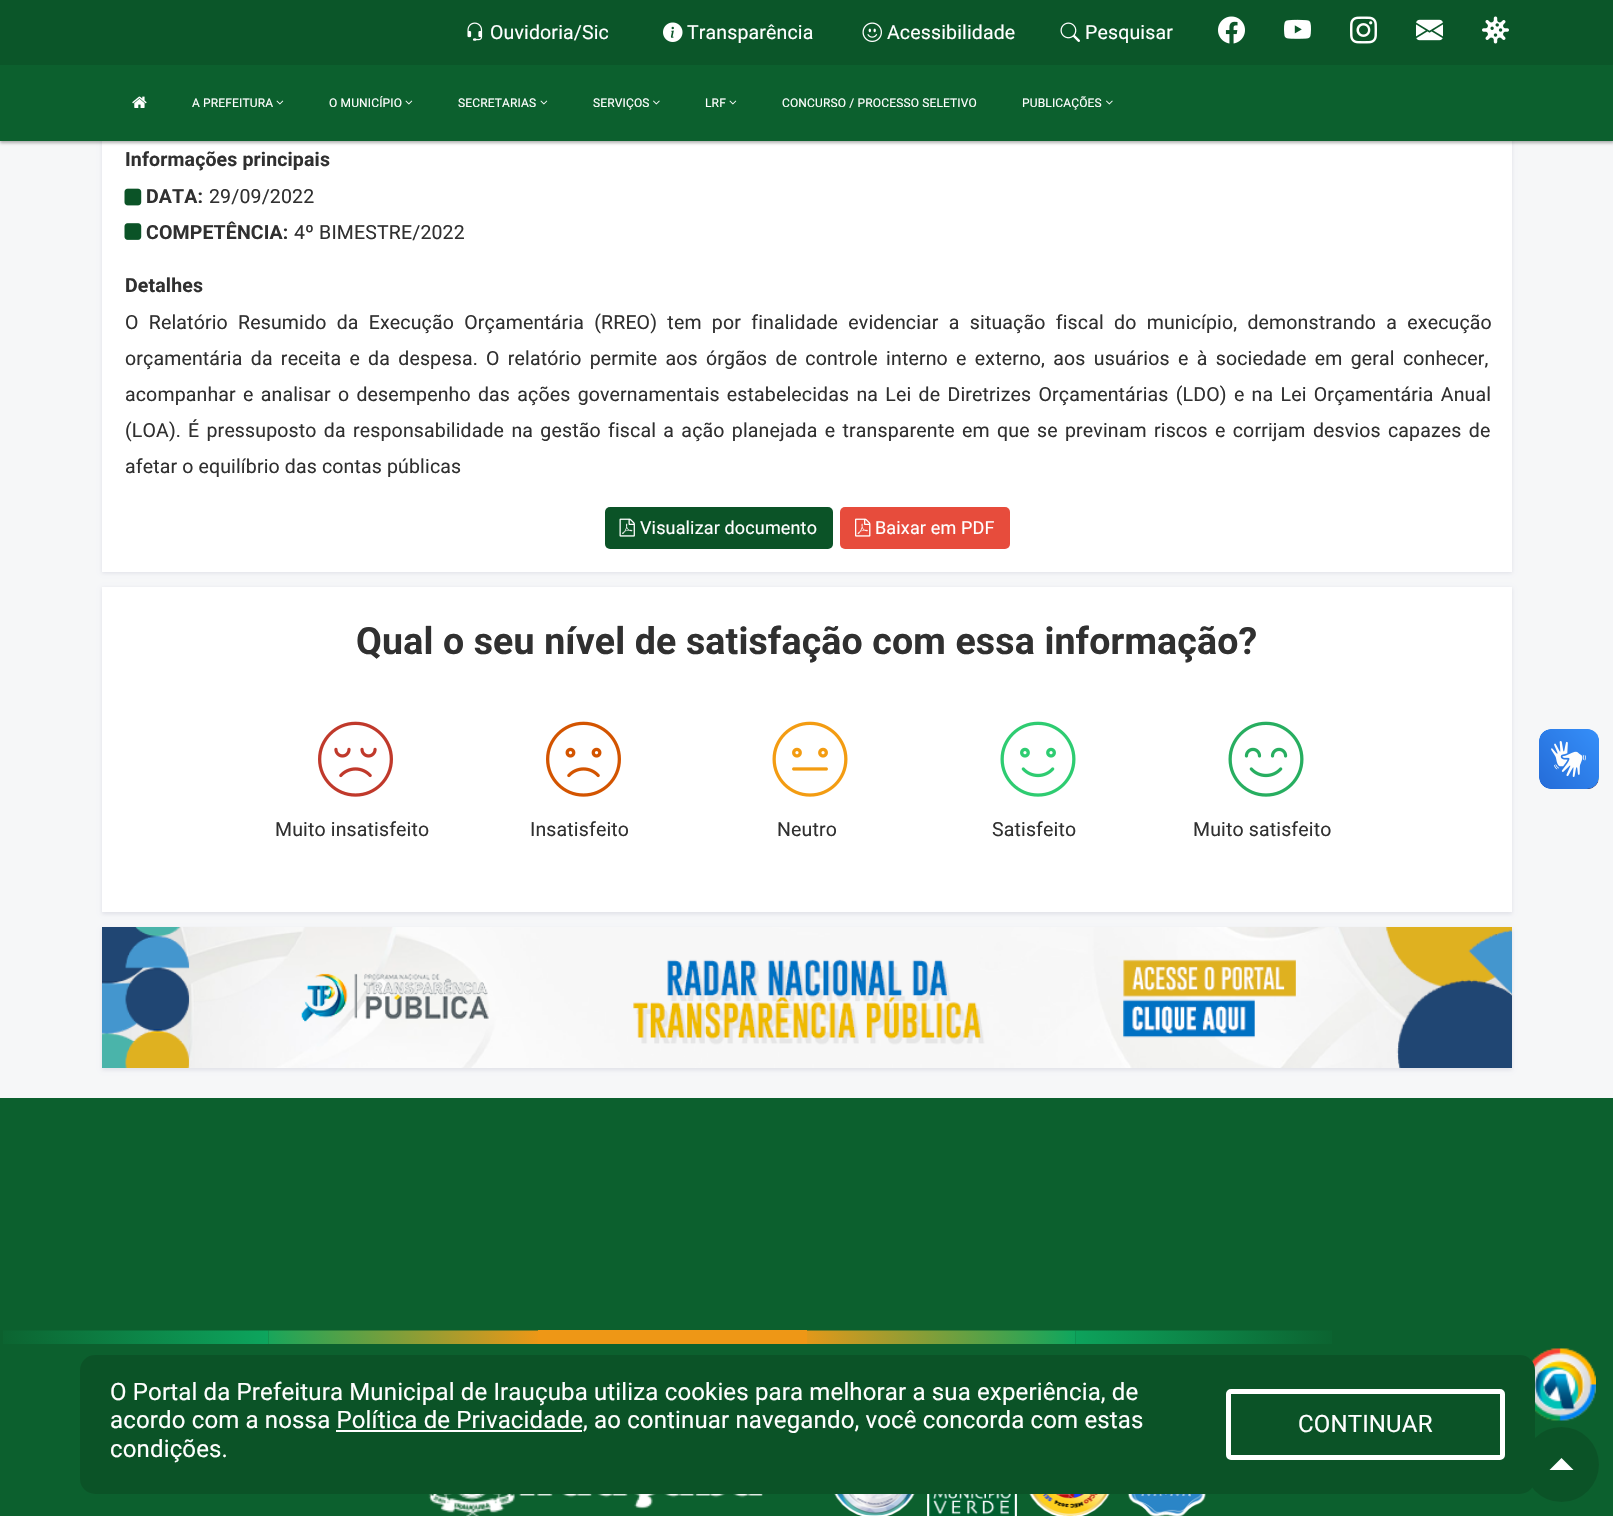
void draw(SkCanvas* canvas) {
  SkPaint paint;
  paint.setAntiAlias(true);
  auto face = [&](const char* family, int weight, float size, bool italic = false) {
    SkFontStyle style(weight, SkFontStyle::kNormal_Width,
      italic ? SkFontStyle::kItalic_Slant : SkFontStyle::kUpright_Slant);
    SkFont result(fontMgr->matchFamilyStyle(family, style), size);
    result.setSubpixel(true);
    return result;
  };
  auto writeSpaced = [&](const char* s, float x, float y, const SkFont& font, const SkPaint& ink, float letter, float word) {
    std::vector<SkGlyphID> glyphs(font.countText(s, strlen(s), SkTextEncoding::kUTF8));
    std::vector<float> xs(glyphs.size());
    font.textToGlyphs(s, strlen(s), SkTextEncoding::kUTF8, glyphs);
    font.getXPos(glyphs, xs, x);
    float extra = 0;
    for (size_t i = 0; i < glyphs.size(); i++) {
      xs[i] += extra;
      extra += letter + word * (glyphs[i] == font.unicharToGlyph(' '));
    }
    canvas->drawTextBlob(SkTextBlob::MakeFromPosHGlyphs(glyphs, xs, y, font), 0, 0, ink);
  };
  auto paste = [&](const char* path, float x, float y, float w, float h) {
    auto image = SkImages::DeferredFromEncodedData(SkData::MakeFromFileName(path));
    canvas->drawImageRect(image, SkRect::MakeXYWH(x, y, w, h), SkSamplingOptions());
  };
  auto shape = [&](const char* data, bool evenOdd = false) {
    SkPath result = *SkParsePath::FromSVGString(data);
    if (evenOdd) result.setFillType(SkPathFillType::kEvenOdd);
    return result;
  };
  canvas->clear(0xfff6f7f8);
  paint.setColor(0x17030047);
  paint.setMaskFilter(SkMaskFilter::MakeBlur(kNormal_SkBlurStyle, 2));
  canvas->drawRect(SkRect::MakeXYWH(102, 15, 1410, 558), paint);
  paint.setMaskFilter(nullptr);
  paint.setColor(0xffffffff);
  canvas->drawRect(SkRect::MakeXYWH(102, 141, 1410, 431), paint);
  paint.setColor(0x4d000000);
  paint.setMaskFilter(SkMaskFilter::MakeBlur(kNormal_SkBlurStyle, 1.5f));
  canvas->drawRect(SkRect::MakeXYWH(0, 2, 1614, 141), paint);
  paint.setMaskFilter(nullptr);
  paint.setColor(0xff0b5629);
  canvas->drawRect(SkRect::MakeXYWH(0, 0, 1613, 65), paint);
  paste("img/1.png", 467, 22, 16, 19);
  paste("img/2.png", 663, 22, 20, 20);
  paste("img/3.png", 862, 22, 20, 20);
  paste("img/4.png", 1060, 22, 20, 20);
  paste("img/5.png", 1218, 16, 27, 28);
  paste("img/6.png", 1284, 19, 27, 20);
  paste("img/7.png", 1350, 16, 27, 28);
  paste("img/8.png", 1416, 19, 27, 22);
  paste("img/9.png", 1482, 16, 27, 28);
  paint.setColor(0xff0c602e);
  canvas->drawRect(SkRect::MakeXYWH(0, 65, 1613, 76), paint);
  paste("img/10.png", 132, 96, 15, 12);
  paste("img/11.png", 276, 100, 8, 5);
  paste("img/11.png", 405, 100, 8, 5);
  paste("img/11.png", 540, 100, 8, 5);
  paste("img/12.png", 653, 100, 7, 5);
  paste("img/11.png", 729, 100, 8, 5);
  paste("img/12.png", 1106, 100, 7, 5);
  paste("img/13.png", 124, 188, 18, 18);
  paste("img/14.png", 124, 223, 18, 17);
  paint.setColor(0xff0b5327);
  canvas->drawRoundRect(SkRect::MakeXYWH(605, 507, 228, 42), 5, 5, paint);
  paste("img/15.png", 619, 518, 16, 19);
  paint.setColor(0xffe74c3c);
  canvas->drawRoundRect(SkRect::MakeXYWH(840, 507, 170, 42), 5, 5, paint);
  paste("img/16.png", 855, 518, 16, 19);
  paint.setColor(0x17030047);
  paint.setMaskFilter(SkMaskFilter::MakeBlur(kNormal_SkBlurStyle, 2));
  canvas->drawRect(SkRect::MakeXYWH(102, 588, 1410, 326), paint);
  paint.setMaskFilter(nullptr);
  paint.setColor(0xffffffff);
  canvas->drawRect(SkRect::MakeXYWH(102, 587, 1410, 325), paint);
  paste("img/17.png", 318, 721, 75, 76);
  paste("img/18.png", 546, 721, 75, 76);
  paste("img/19.png", 772, 721, 76, 76);
  paste("img/20.png", 1000, 721, 76, 76);
  paste("img/21.png", 1228, 721, 76, 76);
  paste("img/22.png", 1539, 729, 60, 60);
  paste("img/23.png", 1539, 729, 60, 60);
  paint.setColor(0x17030047);
  paint.setMaskFilter(SkMaskFilter::MakeBlur(kNormal_SkBlurStyle, 2));
  canvas->drawRect(SkRect::MakeXYWH(102, 929, 1410, 141), paint);
  paint.setMaskFilter(nullptr);
  paste("img/24.png", 102, 927, 1410, 141);
  paint.setColor(0xff0c602e);
  canvas->drawRect(SkRect::MakeXYWH(0, 1098, 1613, 418), paint);
  paste("img/25.png", 3, 1330, 266, 14);
  paste("img/26.png", 268, 1330, 270, 14);
  paint.setColor(0xffee9716);
  canvas->drawRect(SkRect::MakeXYWH(538, 1330, 269, 14), paint);
  paste("img/27.png", 807, 1330, 269, 14);
  paste("img/28.png", 1075, 1330, 257, 14);
  paste("img/29.png", 428, 1494, 335, 22);
  paste("img/30.png", 834, 1494, 81, 22);
  paste("img/31.png", 927, 1494, 90, 22);
  paste("img/32.png", 1029, 1494, 81, 22);
  paste("img/33.png", 1127, 1494, 79, 22);
  paste("img/34.png", 1531, 1348, 65, 73);
  paint.setColor(0xff0b5327);
  canvas->drawCircle(1561.5f, 1464.5f, 37.5f, paint);
  canvas->drawRoundRect(SkRect::MakeXYWH(80, 1355, 1455, 139), 15, 15, paint);
  paint.setColor(0xffffffff);
  canvas->drawRect(SkRect::MakeXYWH(336, 1430, 246, 2), paint);
  paint.setStroke(true);
  paint.setStrokeWidth(5);
  canvas->drawRoundRect(SkRect::MakeXYWH(1228.5f, 1391.5f, 274, 66), 2.5f, 2.5f, paint);
  paint.setStroke(false);
  canvas->drawPath(shape("M1573.5 1470H1549.5L1561.5 1458Z"), paint);
  auto f0 = face("Roboto", 400, 19.5f);
  {
    const struct { const char* s; float x, y; } items[] = {
      {"Ouvidoria/Sic", 490, 39},
      {"Transparência", 687, 39},
      {"Acessibilidade", 887, 39},
      {"Pesquisar", 1085, 39},
    };
    for (auto [s, x, y] : items) {
      writeSpaced(s, x, y, f0, paint, 0.15f, 0);
    }
  }
  auto f1 = face("Roboto", 400, 12);
  {
    const struct { const char* s; float x, y; } items[] = {
      {"A PREFEITURA", 192, 107},
      {"O MUNICÍPIO", 329, 107},
      {"SECRETARIAS", 458, 107},
      {"SERVIÇOS", 593, 107},
      {"LRF", 705, 107},
      {"CONCURSO / PROCESSO SELETIVO", 782, 107},
      {"PUBLICAÇÕES", 1022, 107},
    };
    for (auto [s, x, y] : items) {
      writeSpaced(s, x, y, f1, paint, 0.15f, 0);
    }
  }
  auto f2 = face("Roboto", 700, 19.5f);
  paint.setColor(0xff303030);
  writeSpaced("Informações principais", 125, 166, f2, paint, 0.15f, 0);
  writeSpaced("DATA:", 146, 203, f2, paint, 0.15f, 0);
  writeSpaced("29/09/2022", 209, 203, f0, paint, 0.15f, 0);
  writeSpaced("COMPETÊNCIA:", 146, 239, f2, paint, 0.15f, 0);
  writeSpaced("4º BIMESTRE/2022", 294, 239, f0, paint, 0.15f, 0);
  writeSpaced("Detalhes", 125, 292, f2, paint, 0.15f, 0);
  writeSpaced("O Relatório Resumido da Execução Orçamentária (RREO) tem por finalidade evidenciar a situação fiscal do município, demonstrando a execução", 125, 329, f0, paint, 0.15f, 5.25f);
  writeSpaced("orçamentária da receita e da despesa.", 125, 365, f0, paint, 0.15f, 3.25f);
  writeSpaced("O relatório permite aos órgãos de controle interno e externo, aos usuários e à sociedade em geral conhecer,", 486, 365, f0, paint, 0.15f, 3.25f);
  writeSpaced("acompanhar e analisar o desempenho das ações governamentais estabelecidas na Lei de Diretrizes Orçamentárias (LDO) e na Lei Orçamentária Anual", 125, 401, f0, paint, 0.15f, 2.25f);
  writeSpaced("(LOA).", 125, 437, f0, paint, 0.15f, 0);
  writeSpaced("É pressuposto da responsabilidade na gestão fiscal a ação planejada e transparente em que se previnam riscos e corrijam desvios capazes de", 188, 437, f0, paint, 0.15f, 2.3f);
  writeSpaced("afetar o equilíbrio das contas públicas", 125, 473, f0, paint, 0.15f, 0);
  auto f3 = face("Roboto", 400, 18);
  paint.setColor(0xffffffff);
  writeSpaced("Visualizar documento", 640, 534, f3, paint, 0.15f, 0);
  writeSpaced("Baixar em PDF", 875, 534, f3, paint, 0.15f, 0);
  auto f4 = face("Roboto", 700, 37.5f);
  paint.setColor(0xff303030);
  writeSpaced("Qual o seu nível de satisfação com essa informação?", 356, 654, f4, paint, 0.15f, 0);
  {
    const struct { const char* s; float x, y; } items[] = {
      {"Muito insatisfeito", 275, 836},
      {"Insatisfeito", 530, 836},
      {"Neutro", 777, 836},
      {"Satisfeito", 992, 836},
      {"Muito satisfeito", 1193, 836},
    };
    for (auto [s, x, y] : items) {
      writeSpaced(s, x, y, f0, paint, 0.15f, 0);
    }
  }
  auto f5 = face("Roboto", 400, 24);
  paint.setColor(0xffffffff);
  {
    const struct { const char* s; float x, y; } items[] = {
      {"O Portal da Prefeitura Municipal de Irauçuba utiliza cookies para melhorar a sua experiência, de", 110, 1400},
      {"acordo com a nossa Política de Privacidade, ao continuar navegando, você concorda com estas", 110, 1428},
      {"condições.", 110, 1457},
      {"CONTINUAR", 1298, 1432},
    };
    for (auto [s, x, y] : items) {
      writeSpaced(s, x, y, f5, paint, 0.15f, 0);
    }
  }
}
